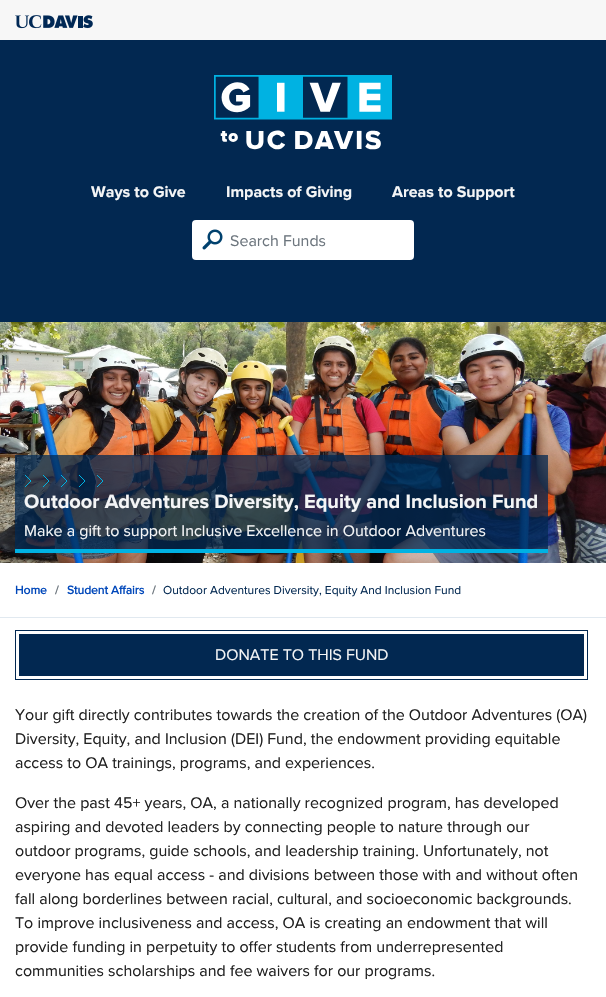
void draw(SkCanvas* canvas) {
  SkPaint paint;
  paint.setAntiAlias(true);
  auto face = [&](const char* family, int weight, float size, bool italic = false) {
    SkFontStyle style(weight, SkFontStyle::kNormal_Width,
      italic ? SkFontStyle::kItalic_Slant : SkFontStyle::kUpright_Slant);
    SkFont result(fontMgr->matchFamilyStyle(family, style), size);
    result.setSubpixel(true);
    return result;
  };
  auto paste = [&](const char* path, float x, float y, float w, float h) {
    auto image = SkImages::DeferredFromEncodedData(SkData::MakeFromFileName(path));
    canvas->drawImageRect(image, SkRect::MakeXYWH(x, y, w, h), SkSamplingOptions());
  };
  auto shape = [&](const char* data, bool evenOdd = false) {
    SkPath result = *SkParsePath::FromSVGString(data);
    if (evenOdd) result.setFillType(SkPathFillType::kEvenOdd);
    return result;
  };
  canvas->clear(0xffffffff);
  paint.setColor(0xfff7f7f7);
  canvas->drawRect(SkRect::MakeXYWH(0, 0, 606, 40), paint);
  paste("img/1.png", 15, 15, 78, 14);
  paint.setColor(0xff022851);
  canvas->drawRect(SkRect::MakeXYWH(0, 40, 606, 282), paint);
  paste("img/2.png", 214, 75, 178, 75);
  paint.setColor(0xffffffff);
  canvas->drawRoundRect(SkRect::MakeXYWH(192, 220, 222, 40), 4, 4, paint);
  paste("img/3.png", 202, 229, 21, 21);
  paste("img/4.png", 0, 322, 606, 241);
  paint.setColor(0xbf022851);
  canvas->drawRect(SkRect::MakeXYWH(15, 455, 533, 94), paint);
  paint.setColor(0xff00b2e3);
  canvas->drawRect(SkRect::MakeXYWH(15, 549, 533, 4), paint);
  paint.setStroke(true);
  paint.setStrokeWidth(1);
  canvas->drawPath(shape("M43 487L49 481L43 475M25 487L31 481L25 475M61 487L67 481L61 475"), paint);
  canvas->drawPath(shape("M97 487L103 481L97 475M79 487L85 481L79 475"), paint);
  paint.setStroke(false);
  paint.setColor(0xffe1e9f0);
  canvas->drawRect(SkRect::MakeXYWH(0, 617, 606, 1), paint);
  paint.setStroke(true);
  paint.setColor(0xff022851);
  canvas->drawRect(SkRect::MakeXYWH(15.5f, 630.5f, 572, 49), paint);
  paint.setStroke(false);
  canvas->drawRect(SkRect::MakeXYWH(19, 634, 565, 42), paint);
  auto f0 = face("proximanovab", 700, 16);
  paint.setColor(0xfff4f5f6);
  {
    const struct { const char* s; float x, y; } items[] = {
      {"Ways to Give", 91, 197},
      {"Impacts of Giving", 226, 197},
      {"Areas to Support", 392, 197},
    };
    for (auto [s, x, y] : items) {
      canvas->drawString(s, x, y, f0, paint);
    }
  }
  auto f1 = face("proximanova", 400, 16);
  paint.setColor(0xff6c757d);
  canvas->drawString("Search Funds", 230, 246, f1, paint);
  auto f2 = face("proximanovab", 700, 20);
  paint.setColor(0xfff4f5f6);
  canvas->drawString("Outdoor Adventures Diversity, Equity and Inclusion Fund", 24, 508, f2, paint);
  canvas->drawString("Make a gift to support Inclusive Excellence in Outdoor Adventures", 24, 536, f1, paint);
  auto f3 = face("proximanova", 700, 12);
  paint.setColor(0xff0047ba);
  canvas->drawString("Home", 15, 594, f3, paint);
  paint.setColor(0xff6c757d);
  canvas->drawString("/", 55, 594, f3, paint);
  paint.setColor(0xff0047ba);
  canvas->drawString("Student Affairs", 67, 594, f3, paint);
  paint.setColor(0xff6c757d);
  canvas->drawString("/", 152, 594, f3, paint);
  auto f4 = face("proximanova", 400, 12);
  paint.setColor(0xff022851);
  canvas->drawString("Outdoor Adventures Diversity, Equity And Inclusion Fund", 163, 594, f4, paint);
  paint.setColor(0xfff4f5f6);
  canvas->drawString("DONATE TO THIS FUND", 215, 660, f1, paint);
  paint.setColor(0xff212121);
  {
    const struct { const char* s; float x, y; } items[] = {
      {"Your gift directly contributes towards the creation of the Outdoor Adventures (OA)", 15, 720},
      {"Diversity, Equity, and Inclusion (DEI) Fund, the endowment providing equitable", 15, 744},
      {"access to OA trainings, programs, and experiences.", 15, 768},
      {"Over the past 45+ years, OA, a nationally recognized program, has developed", 15, 808},
      {"aspiring and devoted leaders by connecting people to nature through our", 15, 832},
      {"outdoor programs, guide schools, and leadership training. Unfortunately, not", 15, 856},
      {"everyone has equal access - and divisions between those with and without often", 15, 880},
      {"fall along borderlines between racial, cultural, and socioeconomic backgrounds.", 15, 904},
      {"To improve inclusiveness and access, OA is creating an endowment that will", 15, 928},
      {"provide funding in perpetuity to offer students from underrepresented", 15, 952},
      {"communities scholarships and fee waivers for our programs.", 15, 976},
    };
    for (auto [s, x, y] : items) {
      canvas->drawString(s, x, y, f1, paint);
    }
  }
}
